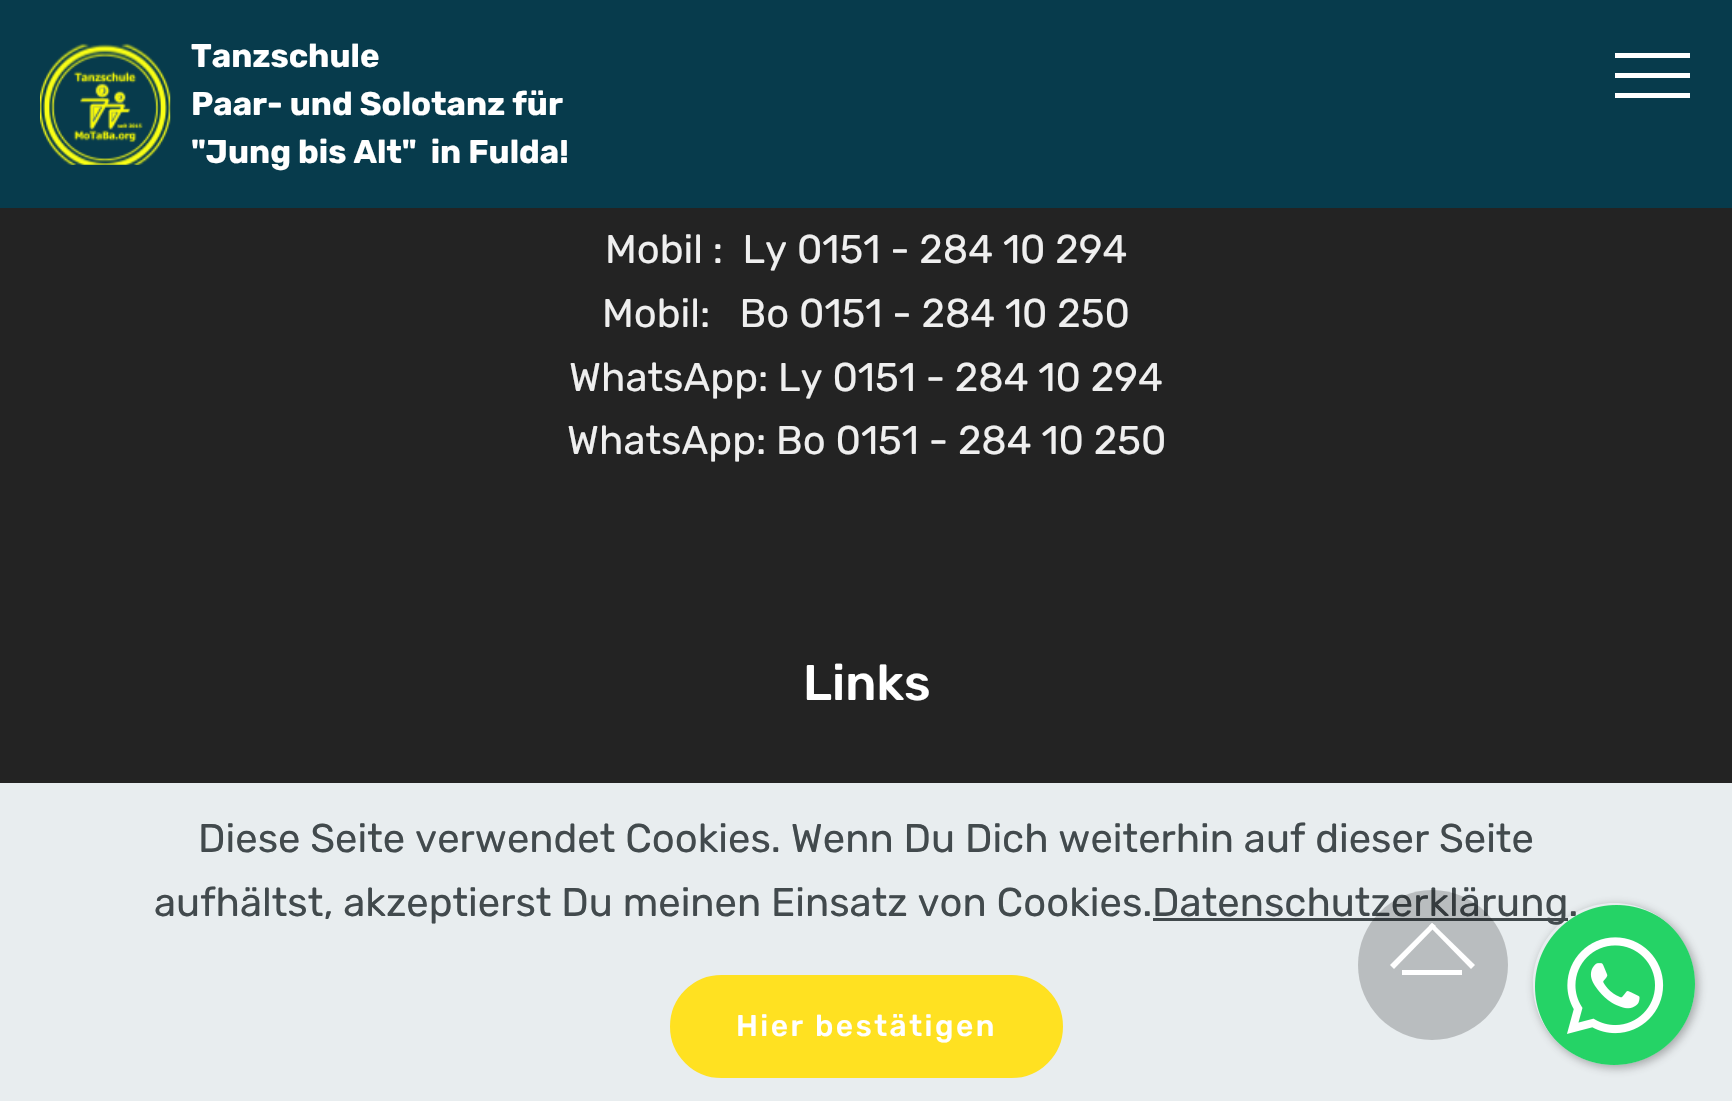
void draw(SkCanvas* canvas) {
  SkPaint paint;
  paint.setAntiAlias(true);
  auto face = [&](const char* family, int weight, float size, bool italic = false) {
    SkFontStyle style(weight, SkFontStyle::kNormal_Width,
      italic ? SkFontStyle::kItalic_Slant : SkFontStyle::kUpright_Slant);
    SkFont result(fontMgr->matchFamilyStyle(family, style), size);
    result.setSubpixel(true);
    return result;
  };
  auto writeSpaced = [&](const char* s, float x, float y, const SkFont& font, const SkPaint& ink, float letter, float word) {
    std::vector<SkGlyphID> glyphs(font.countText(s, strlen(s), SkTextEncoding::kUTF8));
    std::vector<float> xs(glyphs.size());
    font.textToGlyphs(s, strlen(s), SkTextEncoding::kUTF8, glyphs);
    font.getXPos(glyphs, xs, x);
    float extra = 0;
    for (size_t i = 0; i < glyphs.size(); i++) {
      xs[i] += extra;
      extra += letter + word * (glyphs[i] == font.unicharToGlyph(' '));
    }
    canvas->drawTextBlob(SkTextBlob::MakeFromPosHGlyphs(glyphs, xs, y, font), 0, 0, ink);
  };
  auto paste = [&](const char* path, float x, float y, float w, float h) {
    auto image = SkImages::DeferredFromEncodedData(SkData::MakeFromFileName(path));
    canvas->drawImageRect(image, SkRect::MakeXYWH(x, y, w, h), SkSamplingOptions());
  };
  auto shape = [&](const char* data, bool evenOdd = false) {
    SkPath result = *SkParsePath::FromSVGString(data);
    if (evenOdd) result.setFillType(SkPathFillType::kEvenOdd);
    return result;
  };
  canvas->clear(0xff232323);
  paint.setColor(0xff073b4c);
  canvas->drawRect(SkRect::MakeXYWH(0, 0, 1732, 208), paint);
  paste("img/1.png", 40, 43, 131, 122);
  {
    const struct { float x, y, w, h; SkColor color; } items[] = {
      {1615, 53, 75, 5, 0xffffffff},
      {1615, 73, 75, 5, 0xffffffff},
      {1615, 93, 75, 5, 0xffffffff},
      {0, 783, 1732, 318, 0xffe8edef},
      {1153, 918, 415, 3, 0xff424a4d},
    };
    for (auto [x, y, w, h, color] : items) {
      paint.setColor(color);
      canvas->drawRect(SkRect::MakeXYWH(x, y, w, h), paint);
    }
  }
  paint.setColor(0xffffe121);
  canvas->drawRoundRect(SkRect::MakeXYWH(672.5f, 977.5f, 388, 98), 49, 49, paint);
  paint.setStroke(true);
  paint.setStrokeWidth(5);
  canvas->drawRoundRect(SkRect::MakeXYWH(672.5f, 977.5f, 388, 98), 49, 49, paint);
  canvas->save();
  canvas->clipPath(shape("M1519 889H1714V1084H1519ZM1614 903C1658.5 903 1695 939.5 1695 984C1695 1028.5 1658.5 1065 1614 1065C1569.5 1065 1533 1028.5 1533 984C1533 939.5 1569.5 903 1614 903Z", true), true);
  paint.setStroke(false);
  paint.setColor(0x663c3c3c);
  paint.setMaskFilter(SkMaskFilter::MakeBlur(kNormal_SkBlurStyle, 5));
  canvas->drawRoundRect(SkRect::MakeXYWH(1535, 905, 163, 163), 81.5f, 81.5f, paint);
  paint.setMaskFilter(nullptr);
  canvas->restore();
  auto f0 = face("Rubik", 700, 32.9f);
  paint.setColor(0xffffffff);
  {
    const struct { const char* s; float x, y; } items[] = {
      {"Tanzschule", 191, 67},
      {"Paar- und Solotanz für", 191, 115},
      {"\"Jung bis Alt\"  in Fulda!", 191, 163},
    };
    for (auto [s, x, y] : items) {
      canvas->drawString(s, x, y, f0, paint);
    }
  }
  auto f1 = face("Rubik", 400, 40);
  paint.setColor(0xffefefef);
  {
    const struct { const char* s; float x, y; } items[] = {
      {"Mobil :  Ly 0151 - 284 10 294", 605, 263},
      {"Mobil:   Bo 0151 - 284 10 250", 602, 327},
      {"WhatsApp: Ly 0151 - 284 10 294", 569, 391},
      {"WhatsApp: Bo 0151 - 284 10 250", 567, 454},
    };
    for (auto [s, x, y] : items) {
      canvas->drawString(s, x, y, f1, paint);
    }
  }
  auto f2 = face("Rubik", 500, 50);
  paint.setColor(0xffffffff);
  canvas->drawString("Links", 803, 700, f2, paint);
  paint.setColor(0xff424a4d);
  {
    const struct { const char* s; float x, y; } items[] = {
      {"Diese Seite verwendet Cookies. Wenn Du Dich weiterhin auf dieser Seite", 198, 852},
      {"aufhältst, akzeptierst Du meinen Einsatz von Cookies.", 154, 916},
      {"Datenschutzerklärung.", 1152, 916},
    };
    for (auto [s, x, y] : items) {
      canvas->drawString(s, x, y, f1, paint);
    }
  }
  auto f3 = face("Rubik", 500, 30);
  paint.setColor(0xffffffff);
  writeSpaced("Hier bestätigen", 736, 1036, f3, paint, 2.5f, 0);
  paste("img/2.png", 1535, 905, 160, 160);
  paint.setColor(0x33000000);
  canvas->drawPath(shape("M1432 1040C1391 1040 1358 1006 1358 965C1358 924 1391 890 1432 890C1474 890 1508 924 1508 965C1508 1006 1474 1040 1432 1040Z"), paint);
  paint.setColor(0xffffffff);
  canvas->drawPath(shape("M1390 965L1432 923L1436 926L1394 969Z"), paint);
  canvas->drawPath(shape("M1429 926L1432 923L1475 965L1471 969Z"), paint);
  canvas->drawRect(SkRect::MakeXYWH(1402, 970, 60, 5), paint);
}
